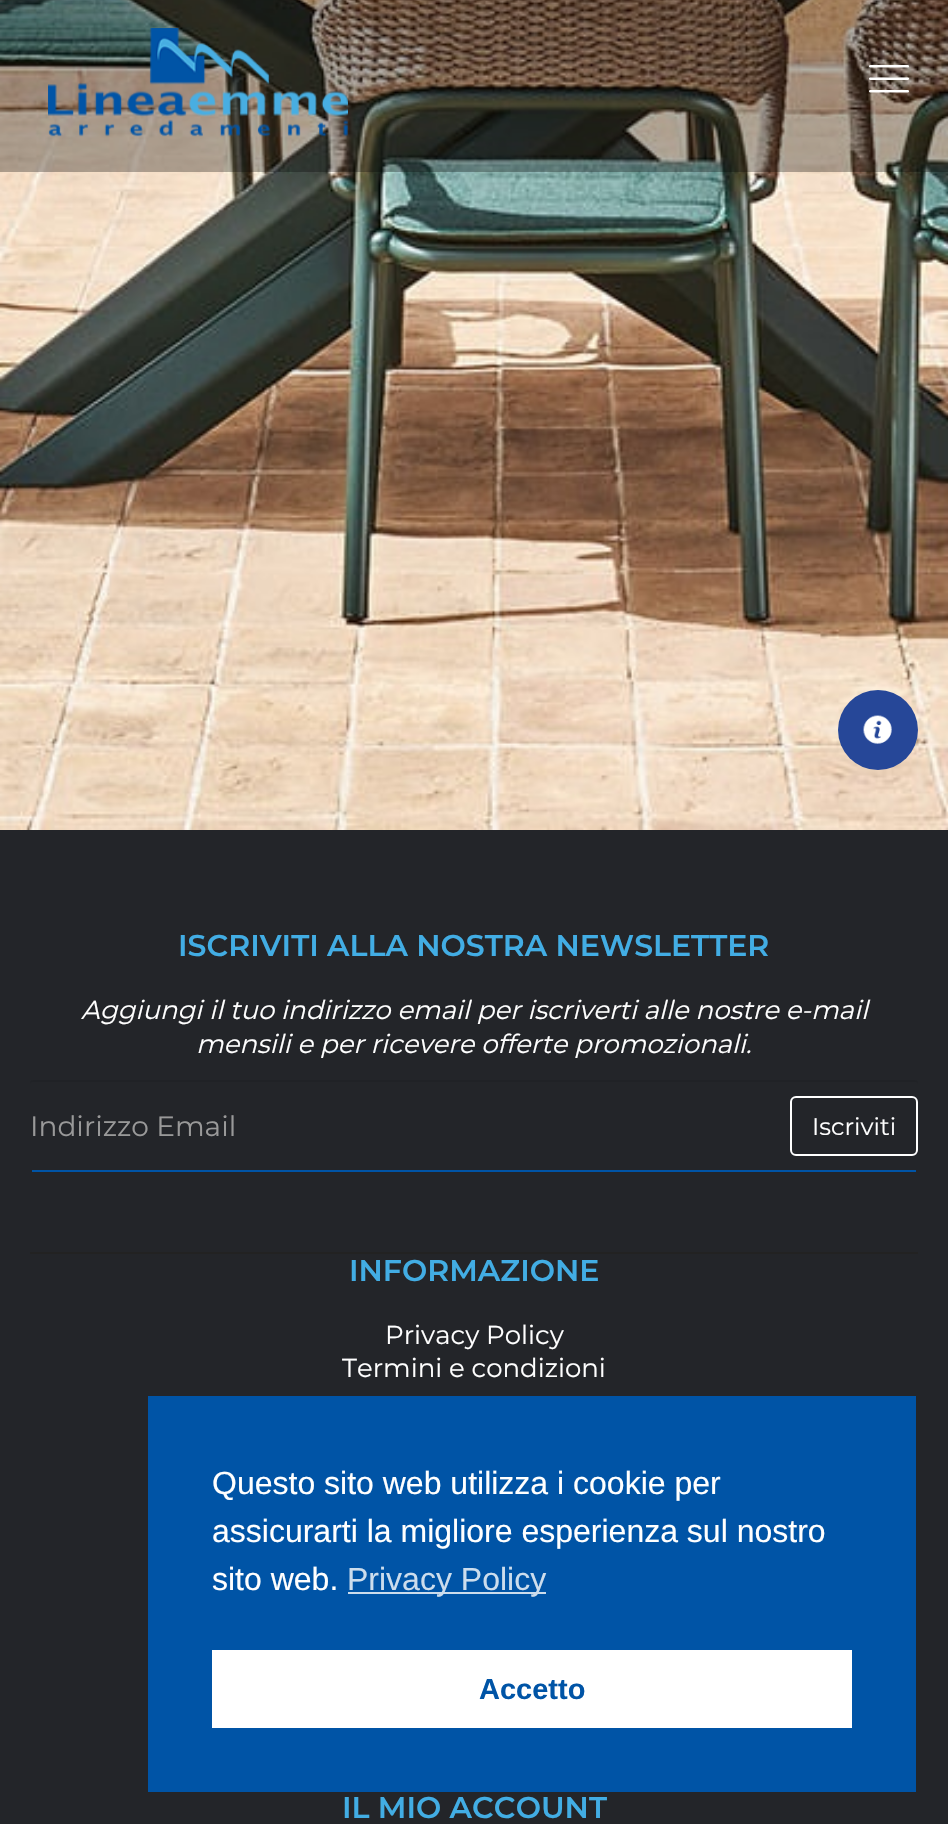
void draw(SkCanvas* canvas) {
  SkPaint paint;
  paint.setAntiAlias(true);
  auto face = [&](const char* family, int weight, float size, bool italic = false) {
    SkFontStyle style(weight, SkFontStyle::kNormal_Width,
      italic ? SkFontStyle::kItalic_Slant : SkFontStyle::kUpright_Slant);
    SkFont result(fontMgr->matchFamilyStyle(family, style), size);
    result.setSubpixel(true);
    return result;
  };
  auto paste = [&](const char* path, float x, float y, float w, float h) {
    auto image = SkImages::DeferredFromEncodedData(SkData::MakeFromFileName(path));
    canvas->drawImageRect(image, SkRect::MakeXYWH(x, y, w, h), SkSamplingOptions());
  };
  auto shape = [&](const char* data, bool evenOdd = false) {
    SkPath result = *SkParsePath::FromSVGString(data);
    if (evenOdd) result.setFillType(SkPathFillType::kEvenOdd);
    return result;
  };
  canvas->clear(0xffffffff);
  paste("img/1.png", 0, 0, 948, 830);
  paint.setColor(0xff264798);
  canvas->drawCircle(878, 730, 40, paint);
  paste("img/2.png", 863, 715, 29, 29);
  paint.setColor(0x4d010101);
  canvas->drawRect(SkRect::MakeXYWH(0, 0, 948, 172), paint);
  paste("img/3.png", 48, 28, 300, 109);
  paste("img/4.png", 869, 65, 40, 28);
  paint.setColor(0xff232529);
  canvas->drawRect(SkRect::MakeXYWH(0, 830, 948, 994), paint);
  paint.setColor(0xff222222);
  canvas->drawRect(SkRect::MakeXYWH(30, 1252, 888, 2), paint);
  paint.setColor(0xff202226);
  canvas->drawPath(shape("M33 1082H915C917 1082 918 1083 918 1085V1083C918 1081 917 1080 915 1080H33C31 1080 30 1081 30 1083V1085C30 1083 31 1082 33 1082Z"), paint);
  paint.setColor(0xff0054a6);
  canvas->drawRect(SkRect::MakeXYWH(32, 1170, 884, 2), paint);
  paint.setStroke(true);
  paint.setStrokeWidth(2);
  paint.setColor(0xffffffff);
  canvas->drawRoundRect(SkRect::MakeXYWH(791, 1097, 126, 58), 5, 5, paint);
  paint.setStroke(false);
  {
    const struct { float x, y, w, h; SkColor color; } items[] = {
      {148, 1396, 768, 396, 0xff0054a6},
      {348, 1592, 198, 2, 0xffccdded},
      {212, 1650, 640, 78, 0xffffffff},
    };
    for (auto [x, y, w, h, color] : items) {
      paint.setColor(color);
      canvas->drawRect(SkRect::MakeXYWH(x, y, w, h), paint);
    }
  }
  auto f0 = face("Montserrat", 600, 30);
  paint.setColor(0xff42ade4);
  canvas->drawString("ISCRIVITI ALLA NOSTRA NEWSLETTER", 178, 956, f0, paint);
  auto f1 = face("Montserrat", 400, 26, true);
  paint.setColor(0xffffffff);
  canvas->drawString("Aggiungi il tuo indirizzo email per iscriverti alle nostre e-mail", 81, 1019, f1, paint);
  canvas->drawString("mensili e per ricevere offerte promozionali.", 196, 1053, f1, paint);
  auto f2 = face("Montserrat", 400, 28);
  paint.setColor(0xff999999);
  canvas->drawString("Indirizzo Email", 30, 1136, f2, paint);
  auto f3 = face("Montserrat", 400, 24);
  paint.setColor(0xffffffff);
  canvas->drawString("Iscriviti", 812, 1135, f3, paint);
  paint.setColor(0xff42ade4);
  canvas->drawString("INFORMAZIONE", 349, 1281, f0, paint);
  auto f4 = face("Montserrat", 400, 26);
  paint.setColor(0xffffffff);
  canvas->drawString("Privacy Policy", 385, 1344, f4, paint);
  canvas->drawString("Termini e condizioni", 342, 1377, f4, paint);
  paint.setColor(0xff42ade4);
  canvas->drawString("IL MIO ACCOUNT", 342, 1818, f0, paint);
  auto f5 = face("Liberation Sans", 400, 32);
  paint.setColor(0xffffffff);
  {
    const struct { const char* s; float x, y; } items[] = {
      {"Questo sito web utilizza i cookie per", 212, 1494},
      {"assicurarti la migliore esperienza sul nostro", 212, 1542},
      {"sito web.", 212, 1590},
    };
    for (auto [s, x, y] : items) {
      canvas->drawString(s, x, y, f5, paint);
    }
  }
  paint.setColor(0xffccdded);
  canvas->drawString("Privacy Policy", 347, 1590, f5, paint);
  auto f6 = face("Liberation Sans", 700, 29);
  paint.setColor(0xff0054a6);
  canvas->drawString("Accetto", 479, 1699, f6, paint);
}
